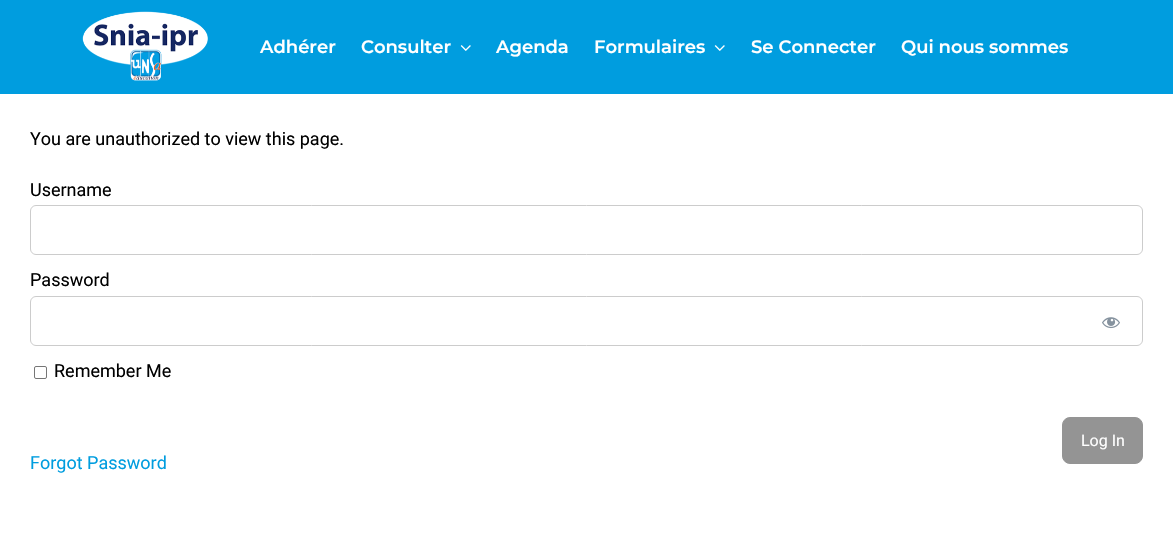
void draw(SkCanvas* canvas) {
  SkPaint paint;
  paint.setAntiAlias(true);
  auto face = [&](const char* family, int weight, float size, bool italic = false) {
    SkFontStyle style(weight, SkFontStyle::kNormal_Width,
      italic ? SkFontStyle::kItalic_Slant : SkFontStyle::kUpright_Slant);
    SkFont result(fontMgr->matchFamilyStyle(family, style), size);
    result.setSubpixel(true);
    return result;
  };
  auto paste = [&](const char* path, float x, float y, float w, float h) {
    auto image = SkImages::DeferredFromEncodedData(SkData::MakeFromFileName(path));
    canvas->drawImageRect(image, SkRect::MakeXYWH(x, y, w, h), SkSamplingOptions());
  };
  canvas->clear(0xffffffff);
  paint.setColor(0xff009ddf);
  canvas->drawRect(SkRect::MakeXYWH(0, 0, 1173, 94), paint);
  paste("img/1.png", 82, 11, 126, 70);
  paste("img/2.png", 460, 45, 11, 6);
  paste("img/2.png", 714, 45, 11, 6);
  paint.setStroke(true);
  paint.setStrokeWidth(1);
  paint.setColor(0xffcccccc);
  canvas->drawRoundRect(SkRect::MakeXYWH(30.5f, 205.5f, 1112, 49), 5.5f, 5.5f, paint);
  canvas->drawRoundRect(SkRect::MakeXYWH(30.5f, 296.5f, 1112, 49), 5.5f, 5.5f, paint);
  paste("img/3.png", 1102, 317, 18, 12);
  paint.setColor(0xff767676);
  canvas->drawRoundRect(SkRect::MakeXYWH(34.5f, 366.5f, 12, 12), 1.5f, 1.5f, paint);
  paint.setStroke(false);
  paint.setColor(0xff949494);
  canvas->drawRoundRect(SkRect::MakeXYWH(1062.5f, 417.5f, 80, 46), 7.5f, 7.5f, paint);
  paint.setStroke(true);
  canvas->drawRoundRect(SkRect::MakeXYWH(1062.5f, 417.5f, 80, 46), 7.5f, 7.5f, paint);
  auto f0 = face("Montserrat", 600, 18);
  paint.setStroke(false);
  paint.setColor(0xffffffff);
  {
    const struct { const char* s; float x, y; } items[] = {
      {"Adhérer", 260, 53},
      {"Consulter", 361, 53},
      {"Agenda", 496, 53},
      {"Formulaires", 594, 53},
      {"Se Connecter", 751, 53},
      {"Qui nous sommes", 901, 53},
    };
    for (auto [s, x, y] : items) {
      canvas->drawString(s, x, y, f0, paint);
    }
  }
  auto f1 = face("Roboto", 400, 18);
  paint.setColor(0xff000000);
  {
    const struct { const char* s; float x, y; } items[] = {
      {"You are unauthorized to view this page.", 30, 145},
      {"Username", 30, 196},
      {"Password", 30, 286},
      {"Remember Me", 54, 377},
    };
    for (auto [s, x, y] : items) {
      canvas->drawString(s, x, y, f1, paint);
    }
  }
  auto f2 = face("Roboto", 400, 16);
  paint.setColor(0xffffffff);
  canvas->drawString("Log In", 1081, 446, f2, paint);
  paint.setColor(0xff009ddf);
  canvas->drawString("Forgot Password", 30, 469, f1, paint);
}
